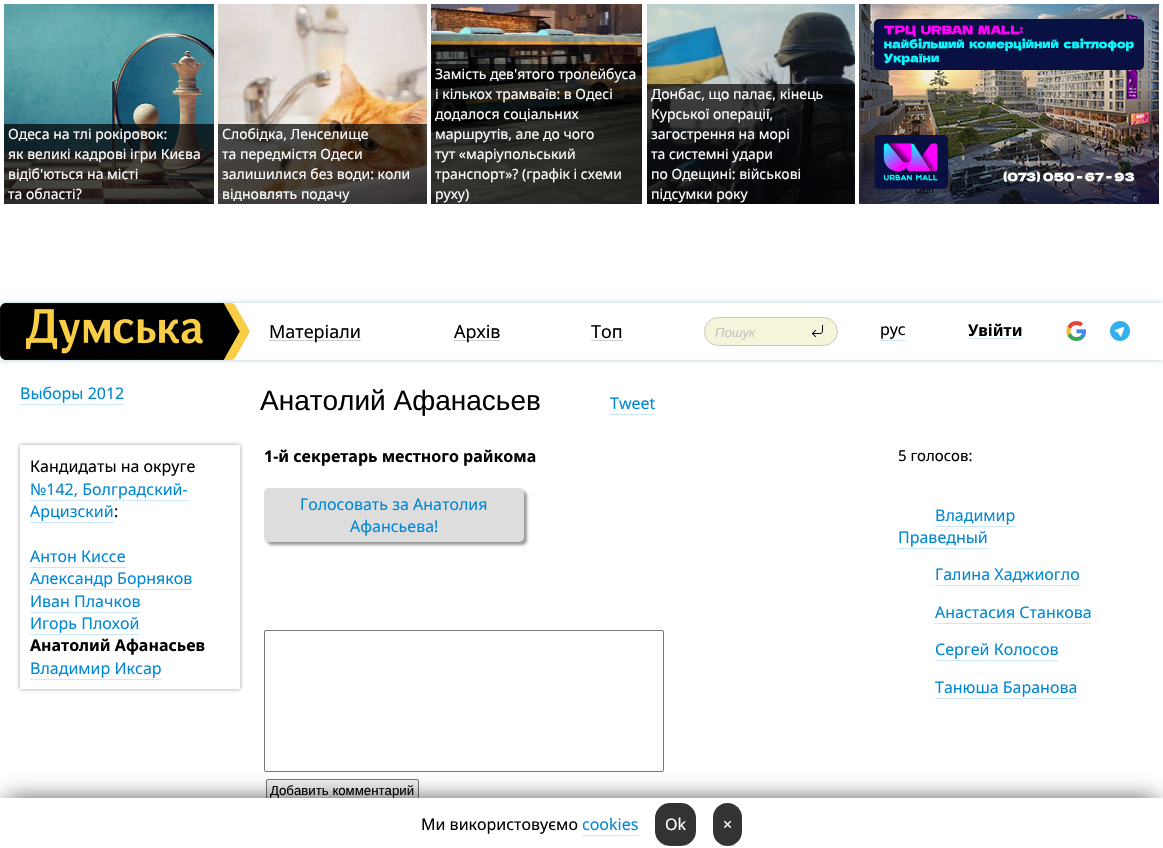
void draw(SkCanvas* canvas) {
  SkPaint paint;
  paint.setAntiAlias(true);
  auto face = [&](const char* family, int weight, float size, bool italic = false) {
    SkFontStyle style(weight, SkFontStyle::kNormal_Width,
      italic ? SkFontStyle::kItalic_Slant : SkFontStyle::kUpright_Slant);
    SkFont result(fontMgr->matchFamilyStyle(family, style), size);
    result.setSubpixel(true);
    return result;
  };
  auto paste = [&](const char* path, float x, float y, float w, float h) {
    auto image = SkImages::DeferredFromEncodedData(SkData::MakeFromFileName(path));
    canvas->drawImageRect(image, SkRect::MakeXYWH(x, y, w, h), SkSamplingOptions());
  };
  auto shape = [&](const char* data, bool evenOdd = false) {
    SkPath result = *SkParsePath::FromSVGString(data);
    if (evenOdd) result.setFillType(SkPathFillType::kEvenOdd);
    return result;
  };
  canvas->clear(0xffffffff);
  paste("img/1.png", 4, 4, 210, 200);
  {
    const struct { float x, y, w, h; SkColor color; } items[] = {
      {4, 124, 4, 80, 0xb3000000},
      {210, 124, 4, 80, 0xb3000000},
      {8, 124, 202, 80, 0xb3000000},
    };
    for (auto [x, y, w, h, color] : items) {
      paint.setColor(color);
      canvas->drawRect(SkRect::MakeXYWH(x, y, w, h), paint);
    }
  }
  paste("img/2.png", 218, 4, 209, 200);
  {
    const struct { float x, y, w, h; SkColor color; } items[] = {
      {218, 124, 4, 80, 0xb3000000},
      {423, 124, 4, 80, 0xb3000000},
      {222, 124, 201, 80, 0xb3000000},
    };
    for (auto [x, y, w, h, color] : items) {
      paint.setColor(color);
      canvas->drawRect(SkRect::MakeXYWH(x, y, w, h), paint);
    }
  }
  paste("img/3.png", 431, 4, 211, 200);
  {
    const struct { float x, y, w, h; SkColor color; } items[] = {
      {431, 64, 4, 140, 0xb3000000},
      {638, 64, 4, 140, 0xb3000000},
      {435, 64, 203, 140, 0xb3000000},
    };
    for (auto [x, y, w, h, color] : items) {
      paint.setColor(color);
      canvas->drawRect(SkRect::MakeXYWH(x, y, w, h), paint);
    }
  }
  paste("img/4.png", 647, 4, 208, 200);
  {
    const struct { float x, y, w, h; SkColor color; } items[] = {
      {647, 84, 4, 120, 0xb3000000},
      {851, 84, 4, 120, 0xb3000000},
      {651, 84, 200, 120, 0xb3000000},
    };
    for (auto [x, y, w, h, color] : items) {
      paint.setColor(color);
      canvas->drawRect(SkRect::MakeXYWH(x, y, w, h), paint);
    }
  }
  paste("img/5.png", 859, 4, 300, 200);
  canvas->save();
  canvas->clipPath(shape("M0 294H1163V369H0ZM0 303H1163V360H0Z", true), true);
  paint.setColor(0x4d004f7a);
  paint.setMaskFilter(SkMaskFilter::MakeBlur(kNormal_SkBlurStyle, 2.5f));
  canvas->drawRect(SkRect::MakeXYWH(0, 303, 1163, 57), paint);
  paint.setMaskFilter(nullptr);
  canvas->restore();
  paste("img/6.png", 0, 303, 250, 57);
  {
    const struct { float x, y, w, h; SkColor color; } items[] = {
      {269, 340, 92, 1, 0xffcccccc},
      {454, 340, 46, 1, 0xffcccccc},
      {591, 340, 32, 1, 0xffcccccc},
    };
    for (auto [x, y, w, h, color] : items) {
      paint.setColor(color);
      canvas->drawRect(SkRect::MakeXYWH(x, y, w, h), paint);
    }
  }
  paint.setColor(0xfff5f5dc);
  canvas->drawRoundRect(SkRect::MakeXYWH(704.5f, 317.5f, 133, 28), 14, 14, paint);
  paint.setStroke(true);
  paint.setStrokeWidth(1);
  paint.setColor(0xffccc7bd);
  canvas->drawRoundRect(SkRect::MakeXYWH(704.5f, 317.5f, 133, 28), 14, 14, paint);
  paste("img/7.png", 811, 325, 12, 12);
  paint.setStroke(false);
  paint.setColor(0xffcce7f7);
  canvas->drawRect(SkRect::MakeXYWH(880, 340, 26, 1), paint);
  canvas->drawRect(SkRect::MakeXYWH(968, 338, 54, 1), paint);
  paste("img/8.png", 1066, 321, 20, 20);
  paste("img/9.png", 1110, 321, 20, 20);
  canvas->drawRect(SkRect::MakeXYWH(20, 404, 104, 1), paint);
  canvas->drawRect(SkRect::MakeXYWH(610, 414, 45, 1), paint);
  canvas->save();
  canvas->clipPath(shape("M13 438H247V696H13ZM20 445H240V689H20Z", true), true);
  paint.setColor(0xff999999);
  paint.setMaskFilter(SkMaskFilter::MakeBlur(kNormal_SkBlurStyle, 2));
  canvas->drawRect(SkRect::MakeXYWH(20, 445, 220, 244), paint);
  paint.setMaskFilter(nullptr);
  canvas->restore();
  {
    const struct { float x, y, w, h; SkColor color; } items[] = {
      {30, 500, 158, 1, 0xffcce7f7},
      {30, 522, 84, 1, 0xffcce7f7},
      {30, 567, 96, 1, 0xffcce7f7},
      {30, 589, 162, 1, 0xffcce7f7},
      {30, 612, 110, 1, 0xffcce7f7},
      {30, 634, 109, 1, 0xffcce7f7},
      {30, 679, 132, 1, 0xffcce7f7},
    };
    for (auto [x, y, w, h, color] : items) {
      paint.setColor(color);
      canvas->drawRect(SkRect::MakeXYWH(x, y, w, h), paint);
    }
  }
  paint.setColor(0xff999999);
  paint.setMaskFilter(SkMaskFilter::MakeBlur(kNormal_SkBlurStyle, 1.5f));
  canvas->drawRoundRect(SkRect::MakeXYWH(267, 491, 260, 54), 5, 5, paint);
  paint.setMaskFilter(nullptr);
  paint.setColor(0xffdddddd);
  canvas->drawRoundRect(SkRect::MakeXYWH(264, 488, 260, 54), 5, 5, paint);
  paint.setStroke(true);
  paint.setColor(0xff767676);
  canvas->drawRoundRect(SkRect::MakeXYWH(264.5f, 630.5f, 399, 141), 1.5f, 1.5f, paint);
  paint.setStroke(false);
  paint.setColor(0xffefefef);
  canvas->drawRoundRect(SkRect::MakeXYWH(266.5f, 779.5f, 152, 22), 1.5f, 1.5f, paint);
  paint.setStroke(true);
  paint.setColor(0xff767676);
  canvas->drawRoundRect(SkRect::MakeXYWH(266.5f, 779.5f, 152, 22), 1.5f, 1.5f, paint);
  paint.setStroke(false);
  {
    const struct { float x, y, w, h; SkColor color; } items[] = {
      {935, 526, 80, 1, 0xffcce7f7},
      {898, 548, 90, 1, 0xffcce7f7},
      {935, 585, 144, 1, 0xffcce7f7},
      {935, 623, 156, 1, 0xffcce7f7},
      {935, 660, 123, 1, 0xffcce7f7},
      {935, 698, 142, 1, 0xffcce7f7},
    };
    for (auto [x, y, w, h, color] : items) {
      paint.setColor(color);
      canvas->drawRect(SkRect::MakeXYWH(x, y, w, h), paint);
    }
  }
  paint.setColor(0xbf000000);
  paint.setMaskFilter(SkMaskFilter::MakeBlur(kNormal_SkBlurStyle, 11.5f));
  canvas->drawRect(SkRect::MakeXYWH(7, 800, 1149, 36), paint);
  paint.setMaskFilter(nullptr);
  paint.setColor(0xffffffff);
  canvas->drawRect(SkRect::MakeXYWH(0, 798, 1163, 50), paint);
  paint.setColor(0xffcce7f7);
  canvas->drawRect(SkRect::MakeXYWH(582, 835, 57, 1), paint);
  paint.setColor(0xff333333);
  canvas->drawRoundRect(SkRect::MakeXYWH(655, 803, 41, 43), 15, 15, paint);
  paint.setColor(0x330087d6);
  canvas->drawRect(SkRect::MakeXYWH(663, 845, 26, 1), paint);
  paint.setColor(0xff333333);
  canvas->drawRoundRect(SkRect::MakeXYWH(713, 803, 29, 43), 14.5f, 14.5f, paint);
  paint.setColor(0x330087d6);
  canvas->drawRect(SkRect::MakeXYWH(720, 845, 15, 1), paint);
  auto f0 = face("Noto Sans", 400, 14);
  paint.setColor(0xffffffff);
  {
    const struct { const char* s; float x, y; } items[] = {
      {"Одеса на тлі рокіровок:", 8, 139},
      {"як великі кадрові ігри Києва", 8, 159},
      {"відіб'ються на місті", 8, 179},
      {"та області?", 8, 199},
      {"Слобідка, Ленселище", 222, 139},
      {"та передмістя Одеси", 222, 159},
      {"залишилися без води: коли", 222, 179},
      {"відновлять подачу", 222, 199},
      {"Замість дев'ятого тролейбуса", 435, 79},
      {"і кількох трамваїв: в Одесі", 435, 99},
      {"додалося соціальних", 435, 119},
      {"маршрутів, але до чого", 435, 139},
      {"тут «маріупольський", 435, 159},
      {"транспорт»? (графік і схеми", 435, 179},
      {"руху)", 435, 199},
      {"Донбас, що палає, кінець", 651, 99},
      {"Курської операції,", 651, 119},
      {"загострення на морі", 651, 139},
      {"та системні удари", 651, 159},
      {"по Одещині: військові", 651, 179},
      {"підсумки року", 651, 199},
    };
    for (auto [s, x, y] : items) {
      canvas->drawString(s, x, y, f0, paint);
    }
  }
  auto f1 = face("Noto Sans", 400, 18);
  paint.setColor(0xff000000);
  {
    const struct { const char* s; float x, y; } items[] = {
      {"Матеріали", 269, 338},
      {"Архів", 454, 338},
      {"Топ", 591, 338},
    };
    for (auto [s, x, y] : items) {
      canvas->drawString(s, x, y, f1, paint);
    }
  }
  auto f2 = face("Liberation Sans", 400, 13, true);
  paint.setColor(0xffc6c4be);
  canvas->drawString("Пошук", 715, 337, f2, paint);
  auto f3 = face("Noto Sans", 400, 16);
  paint.setColor(0xff000000);
  canvas->drawString("рус", 880, 335, f3, paint);
  auto f4 = face("Noto Sans", 700, 16);
  canvas->drawString("Увійти", 968, 336, f4, paint);
  paint.setColor(0xff0087d6);
  canvas->drawString("Выборы 2012", 20, 399, f3, paint);
  auto f5 = face("Liberation Sans", 400, 28);
  paint.setColor(0xff000000);
  canvas->drawString("Анатолий Афанасьев", 260, 410, f5, paint);
  paint.setColor(0xff0087d6);
  canvas->drawString("Tweet", 610, 409, f3, paint);
  paint.setColor(0xff000000);
  canvas->drawString("Кандидаты на округе", 30, 472, f3, paint);
  paint.setColor(0xff0087d6);
  canvas->drawString("№142, Болградский-", 30, 495, f3, paint);
  canvas->drawString("Арцизский", 30, 517, f3, paint);
  paint.setColor(0xff000000);
  canvas->drawString(":", 114, 517, f3, paint);
  paint.setColor(0xff0087d6);
  {
    const struct { const char* s; float x, y; } items[] = {
      {"Антон Киссе", 30, 562},
      {"Александр Борняков", 30, 584},
      {"Иван Плачков", 30, 607},
      {"Игорь Плохой", 30, 629},
    };
    for (auto [s, x, y] : items) {
      canvas->drawString(s, x, y, f3, paint);
    }
  }
  paint.setColor(0xff000000);
  canvas->drawString("Анатолий Афанасьев", 30, 651, f4, paint);
  paint.setColor(0xff0087d6);
  canvas->drawString("Владимир Иксар", 30, 674, f3, paint);
  paint.setColor(0xff000000);
  canvas->drawString("1-й секретарь местного райкома", 264, 462, f4, paint);
  paint.setColor(0xff0087d6);
  canvas->drawString("Голосовать за Анатолия", 300, 510, f3, paint);
  canvas->drawString("Афансьева!", 350, 532, f3, paint);
  auto f6 = face("Liberation Sans", 400, 13.25f);
  paint.setColor(0xff000000);
  canvas->drawString("Добавить комментарий", 270, 795, f6, paint);
  auto f7 = face("Noto Sans", 400, 15);
  canvas->drawString("5 голосов:", 898, 461, f7, paint);
  paint.setColor(0xff0087d6);
  {
    const struct { const char* s; float x, y; } items[] = {
      {"Владимир", 935, 521},
      {"Праведный", 898, 543},
      {"Галина Хаджиогло", 935, 580},
      {"Анастасия Станкова", 935, 618},
      {"Сергей Колосов", 935, 655},
      {"Танюша Баранова", 935, 693},
    };
    for (auto [s, x, y] : items) {
      canvas->drawString(s, x, y, f3, paint);
    }
  }
  paint.setColor(0xff000000);
  canvas->drawString("Ми використовуємо", 421, 830, f3, paint);
  paint.setColor(0xff0087d6);
  canvas->drawString("cookies", 582, 830, f3, paint);
  paint.setColor(0xffffffff);
  canvas->drawString("Ok", 665, 830, f3, paint);
  canvas->drawString("×", 723, 830, f3, paint);
}
